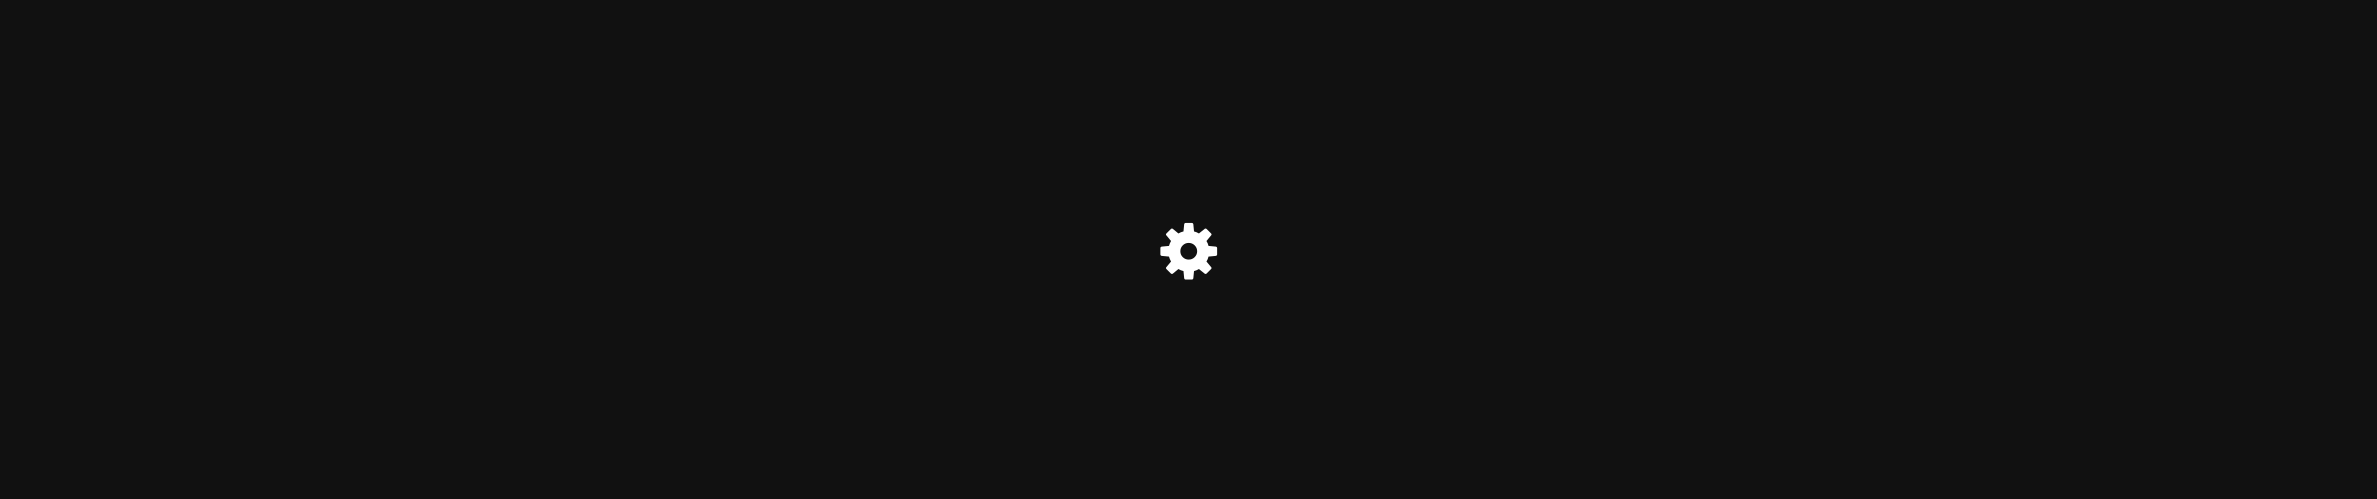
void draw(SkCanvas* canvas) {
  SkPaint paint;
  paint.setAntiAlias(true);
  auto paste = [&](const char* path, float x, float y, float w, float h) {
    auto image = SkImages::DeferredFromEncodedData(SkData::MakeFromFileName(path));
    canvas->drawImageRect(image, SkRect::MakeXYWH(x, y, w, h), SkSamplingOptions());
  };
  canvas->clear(0xff111111);
  paste("img/1.png", 1160, 222, 58, 58);
}
